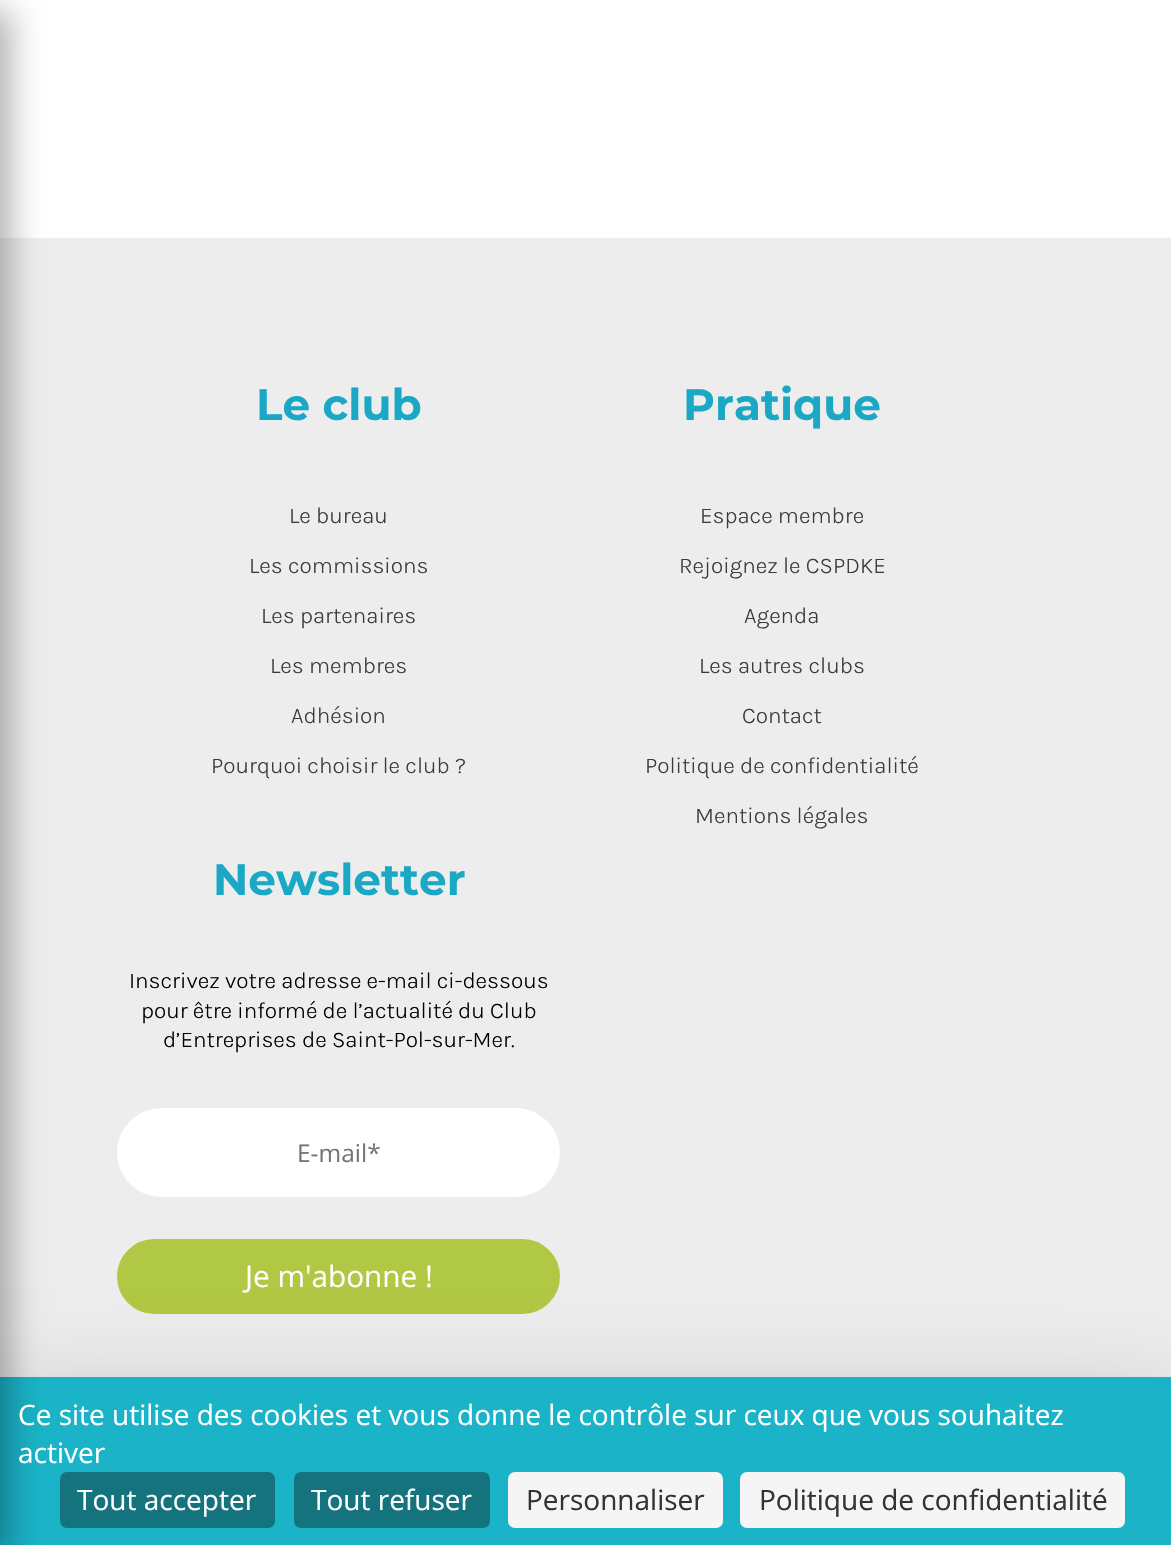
void draw(SkCanvas* canvas) {
  SkPaint paint;
  paint.setAntiAlias(true);
  auto face = [&](const char* family, int weight, float size, bool italic = false) {
    SkFontStyle style(weight, SkFontStyle::kNormal_Width,
      italic ? SkFontStyle::kItalic_Slant : SkFontStyle::kUpright_Slant);
    SkFont result(fontMgr->matchFamilyStyle(family, style), size);
    result.setSubpixel(true);
    return result;
  };
  canvas->clear(0xffffffff);
  paint.setColor(0xffededed);
  canvas->drawRect(SkRect::MakeXYWH(0, 238, 1171, 1139), paint);
  paint.setColor(0xffb1c844);
  canvas->drawRoundRect(SkRect::MakeXYWH(119, 1241, 439, 71), 35.5f, 35.5f, paint);
  paint.setStroke(true);
  paint.setStrokeWidth(4);
  canvas->drawRoundRect(SkRect::MakeXYWH(119, 1241, 439, 71), 35.5f, 35.5f, paint);
  paint.setStroke(false);
  paint.setColor(0x40000000);
  paint.setMaskFilter(SkMaskFilter::MakeBlur(kNormal_SkBlurStyle, 52.5f));
  canvas->drawRect(SkRect::MakeXYWH(0, 1412, 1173, 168), paint);
  paint.setMaskFilter(nullptr);
  paint.setColor(0xff1ab3c7);
  canvas->drawRect(SkRect::MakeXYWH(0, 1377, 1171, 168), paint);
  paint.setColor(0x4d000000);
  paint.setMaskFilter(SkMaskFilter::MakeBlur(kNormal_SkBlurStyle, 16));
  canvas->drawRect(SkRect::MakeXYWH(-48, 11, 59, 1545), paint);
  paint.setMaskFilter(nullptr);
  paint.setColor(0xffffffff);
  canvas->drawRoundRect(SkRect::MakeXYWH(117, 1108, 443, 89), 44.5f, 44.5f, paint);
  paint.setColor(0xff14737d);
  canvas->drawRoundRect(SkRect::MakeXYWH(60, 1472, 215, 56), 7, 7, paint);
  canvas->drawRoundRect(SkRect::MakeXYWH(294, 1472, 196, 56), 7, 7, paint);
  paint.setColor(0xfff5f5f5);
  canvas->drawRoundRect(SkRect::MakeXYWH(508, 1472, 215, 56), 7, 7, paint);
  canvas->drawRoundRect(SkRect::MakeXYWH(740, 1472, 385, 56), 7, 7, paint);
  auto f0 = face("Montserrat", 100, 43.75f);
  paint.setColor(0xff1aa8c4);
  canvas->drawString("Le club", 256, 420, f0, paint);
  auto f1 = face("Karla", 300, 22.75f);
  paint.setColor(0xff3b3b3b);
  {
    const struct { const char* s; float x, y; } items[] = {
      {"Le bureau", 289, 523},
      {"Les commissions", 249, 573},
      {"Les partenaires", 261, 623},
      {"Les membres", 270, 673},
      {"Adhésion", 291, 723},
      {"Pourquoi choisir le club ?", 211, 773},
    };
    for (auto [s, x, y] : items) {
      canvas->drawString(s, x, y, f1, paint);
    }
  }
  paint.setColor(0xff1aa8c4);
  canvas->drawString("Pratique", 683, 420, f0, paint);
  paint.setColor(0xff3b3b3b);
  {
    const struct { const char* s; float x, y; } items[] = {
      {"Espace membre", 700, 523},
      {"Rejoignez le CSPDKE", 679, 573},
      {"Agenda", 744, 623},
      {"Les autres clubs", 699, 673},
      {"Contact", 742, 723},
      {"Politique de confidentialité", 645, 773},
      {"Mentions légales", 695, 823},
    };
    for (auto [s, x, y] : items) {
      canvas->drawString(s, x, y, f1, paint);
    }
  }
  paint.setColor(0xff1aa8c4);
  canvas->drawString("Newsletter", 213, 895, f0, paint);
  paint.setColor(0xff000000);
  {
    const struct { const char* s; float x, y; } items[] = {
      {"Inscrivez votre adresse e-mail ci-dessous", 129, 988},
      {"pour être informé de l’actualité du Club", 141, 1018},
      {"d’Entreprises de Saint-Pol-sur-Mer.", 163, 1047},
    };
    for (auto [s, x, y] : items) {
      canvas->drawString(s, x, y, f1, paint);
    }
  }
  auto f2 = face("Open Sans", 400, 24.5f);
  paint.setColor(0xff757575);
  canvas->drawString("E-mail*", 297, 1162, f2, paint);
  auto f3 = face("Open Sans", 400, 29.75f);
  paint.setColor(0xffffffff);
  canvas->drawString("Je m'abonne !", 245, 1287, f3, paint);
  auto f4 = face("Open Sans", 400, 28);
  {
    const struct { const char* s; float x, y; } items[] = {
      {"Ce site utilise des cookies et vous donne le contrôle sur ceux que vous souhaitez", 18, 1425},
      {"activer", 18, 1463},
      {"Tout accepter", 77, 1510},
      {"Tout refuser", 311, 1510},
    };
    for (auto [s, x, y] : items) {
      canvas->drawString(s, x, y, f4, paint);
    }
  }
  paint.setColor(0xff333333);
  canvas->drawString("Personnaliser", 526, 1510, f4, paint);
  canvas->drawString("Politique de confidentialité", 759, 1510, f4, paint);
}
